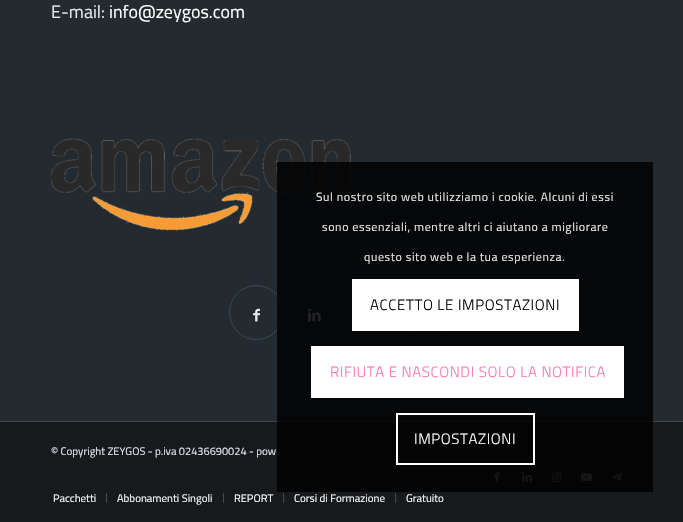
void draw(SkCanvas* canvas) {
  SkPaint paint;
  paint.setAntiAlias(true);
  auto face = [&](const char* family, int weight, float size, bool italic = false) {
    SkFontStyle style(weight, SkFontStyle::kNormal_Width,
      italic ? SkFontStyle::kItalic_Slant : SkFontStyle::kUpright_Slant);
    SkFont result(fontMgr->matchFamilyStyle(family, style), size);
    result.setSubpixel(true);
    return result;
  };
  auto writeSpaced = [&](const char* s, float x, float y, const SkFont& font, const SkPaint& ink, float letter, float word) {
    std::vector<SkGlyphID> glyphs(font.countText(s, strlen(s), SkTextEncoding::kUTF8));
    std::vector<float> xs(glyphs.size());
    font.textToGlyphs(s, strlen(s), SkTextEncoding::kUTF8, glyphs);
    font.getXPos(glyphs, xs, x);
    float extra = 0;
    for (size_t i = 0; i < glyphs.size(); i++) {
      xs[i] += extra;
      extra += letter + word * (glyphs[i] == font.unicharToGlyph(' '));
    }
    canvas->drawTextBlob(SkTextBlob::MakeFromPosHGlyphs(glyphs, xs, y, font), 0, 0, ink);
  };
  auto paste = [&](const char* path, float x, float y, float w, float h) {
    auto image = SkImages::DeferredFromEncodedData(SkData::MakeFromFileName(path));
    canvas->drawImageRect(image, SkRect::MakeXYWH(x, y, w, h), SkSamplingOptions());
  };
  canvas->clear(0xff232b30);
  paste("img/1.png", 51, 138, 300, 93);
  paint.setStroke(true);
  paint.setStrokeWidth(1);
  paint.setColor(0xff384852);
  canvas->drawCircle(256.5f, 312.5f, 27, paint);
  paste("img/2.png", 253, 308, 7, 14);
  canvas->drawCircle(313.5f, 312.5f, 27, paint);
  paste("img/3.png", 308, 308, 13, 14);
  canvas->drawCircle(370.5f, 312.5f, 27, paint);
  canvas->drawCircle(427.5f, 312.5f, 27, paint);
  paint.setStroke(false);
  paint.setColor(0xff161a1c);
  canvas->drawRect(SkRect::MakeXYWH(0, 422, 683, 100), paint);
  paint.setColor(0xff3e4a52);
  canvas->drawRect(SkRect::MakeXYWH(0, 421, 683, 1), paint);
  paste("img/4.png", 494, 472, 6, 11);
  paste("img/5.png", 522, 472, 10, 10);
  paste("img/6.png", 552, 472, 10, 10);
  paste("img/7.png", 581, 473, 11, 8);
  paste("img/8.png", 612, 473, 11, 9);
  {
    const struct { float x, y, w, h; SkColor color; } items[] = {
      {106, 493, 1, 10, 0xff3e4a52},
      {223, 493, 1, 10, 0xff3e4a52},
      {283, 493, 1, 10, 0xff3e4a52},
      {395, 493, 1, 10, 0xff3e4a52},
      {277, 162, 376, 330, 0xd9000000},
      {352, 279, 227, 52, 0xffffffff},
      {311, 346, 313, 52, 0xffffffff},
    };
    for (auto [x, y, w, h, color] : items) {
      paint.setColor(color);
      canvas->drawRect(SkRect::MakeXYWH(x, y, w, h), paint);
    }
  }
  paint.setStroke(true);
  paint.setStrokeWidth(2);
  canvas->drawRect(SkRect::MakeXYWH(397, 414, 137, 50), paint);
  auto f0 = face("Titillium Web", 400, 18);
  paint.setStroke(false);
  paint.setColor(0xffe4e6f0);
  canvas->drawString("E-mail:", 51, 18, f0, paint);
  paint.setColor(0xffffffff);
  canvas->drawString("info@zeygos.com", 109, 18, f0, paint);
  auto f1 = face("Titillium Web", 400, 11);
  paint.setColor(0xffe4e6f0);
  canvas->drawString("© Copyright ZEYGOS - p.iva 02436690024 - pow", 51, 455, f1, paint);
  paint.setColor(0xffffffff);
  {
    const struct { const char* s; float x, y; } items[] = {
      {"Pacchetti", 53, 502},
      {"Abbonamenti Singoli", 117, 502},
      {"REPORT", 234, 502},
      {"Corsi di Formazione", 294, 502},
      {"Gratuito", 406, 502},
    };
    for (auto [s, x, y] : items) {
      canvas->drawString(s, x, y, f1, paint);
    }
  }
  auto f2 = face("Titillium Web", 400, 12);
  paint.setColor(0xffe6e6e6);
  {
    const struct { const char* s; float x, y; } items[] = {
      {"Sul nostro sito web utilizziamo i cookie. Alcuni di essi", 316, 201},
      {"sono essenziali, mentre altri ci aiutano a migliorare", 322, 231},
      {"questo sito web e la tua esperienza.", 364, 261},
    };
    for (auto [s, x, y] : items) {
      writeSpaced(s, x, y, f2, paint, 0.6f, 0);
    }
  }
  auto f3 = face("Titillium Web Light", 300, 15);
  paint.setColor(0xff000000);
  writeSpaced("ACCETTO LE IMPOSTAZIONI", 370, 310, f3, paint, 0.6f, 0);
  paint.setColor(0xffff75b5);
  writeSpaced("RIFIUTA E NASCONDI SOLO LA NOTIFICA", 330, 377, f3, paint, 0.6f, 0);
  paint.setColor(0xffffffff);
  writeSpaced("IMPOSTAZIONI", 414, 444, f3, paint, 0.6f, 0);
}
